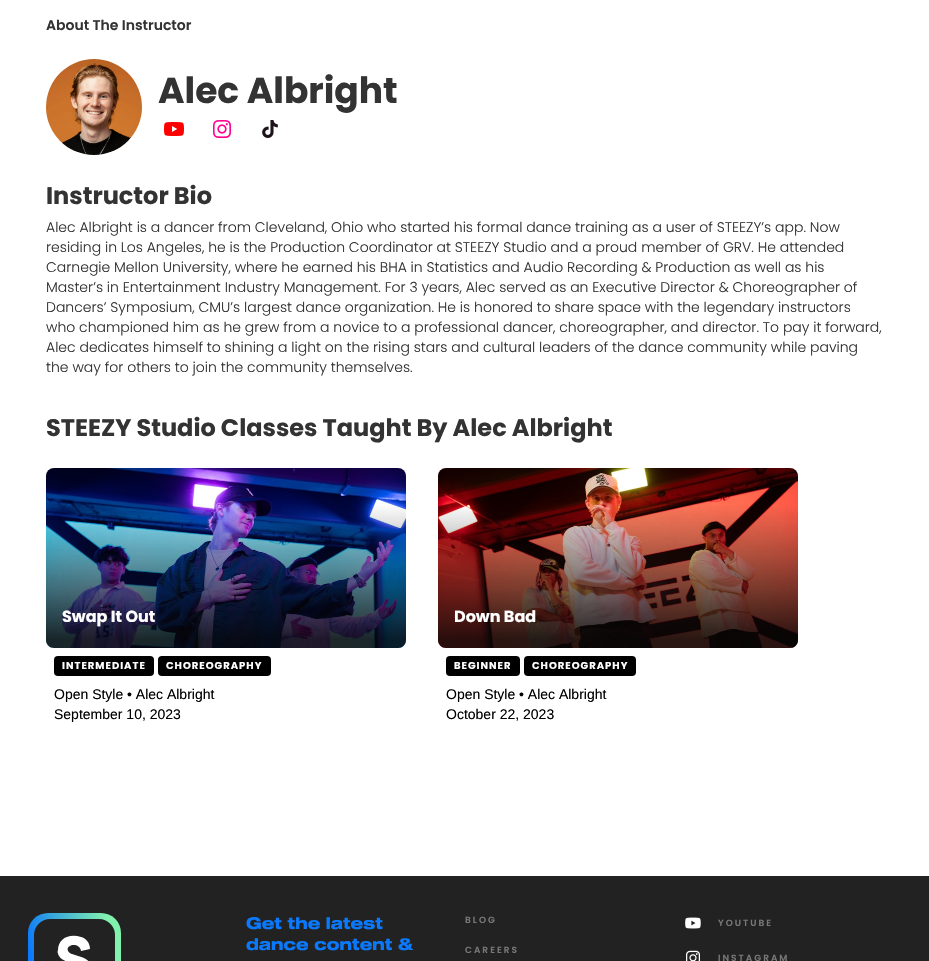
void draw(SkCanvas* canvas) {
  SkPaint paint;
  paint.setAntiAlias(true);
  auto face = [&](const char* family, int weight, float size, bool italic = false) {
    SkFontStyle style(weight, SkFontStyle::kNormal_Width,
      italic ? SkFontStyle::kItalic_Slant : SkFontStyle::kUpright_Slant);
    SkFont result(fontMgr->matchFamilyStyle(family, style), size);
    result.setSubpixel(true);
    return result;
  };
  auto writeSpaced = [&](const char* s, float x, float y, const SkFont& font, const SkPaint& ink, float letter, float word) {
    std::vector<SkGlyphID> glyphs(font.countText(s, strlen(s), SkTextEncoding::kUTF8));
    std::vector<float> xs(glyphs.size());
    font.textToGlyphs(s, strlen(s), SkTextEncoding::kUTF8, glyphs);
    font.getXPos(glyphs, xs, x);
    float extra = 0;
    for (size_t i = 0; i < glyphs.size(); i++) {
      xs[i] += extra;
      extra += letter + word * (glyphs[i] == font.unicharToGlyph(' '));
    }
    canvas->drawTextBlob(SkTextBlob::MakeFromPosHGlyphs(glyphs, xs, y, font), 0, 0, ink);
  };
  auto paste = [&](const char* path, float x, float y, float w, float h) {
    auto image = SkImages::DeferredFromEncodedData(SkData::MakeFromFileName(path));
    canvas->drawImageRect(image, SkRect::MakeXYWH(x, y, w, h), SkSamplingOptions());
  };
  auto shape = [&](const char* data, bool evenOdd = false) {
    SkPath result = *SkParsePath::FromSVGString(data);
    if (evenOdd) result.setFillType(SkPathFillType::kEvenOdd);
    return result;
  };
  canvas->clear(0xffffffff);
  paste("img/1.png", 46, 59, 96, 96);
  paste("img/2.png", 164, 122, 20, 14);
  paste("img/3.png", 213, 120, 18, 19);
  paste("img/4.png", 262, 120, 16, 18);
  paste("img/5.png", 46, 468, 360, 180);
  {
    const SkColor colors[] = {0xfffafafa, 0x00fafafa, 0x00050505, 0xd9050505};
    const float stops[] = {0, 0, 0, 0.94f};
    const SkPoint ends[] = {{226, 504}, {226, 648}};
    paint.setShader(SkGradientShader::MakeLinear(ends, colors, stops, 4, SkTileMode::kClamp));
    paint.setAlpha(255);
  }
  canvas->drawPath(shape("M46 504H406V640C406 644.5 402.5 648 398 648H54C49.5 648 46 644.5 46 640Z"), paint);
  paint.setShader(nullptr);
  paint.setColor(0xff000000);
  canvas->drawRoundRect(SkRect::MakeXYWH(54, 656, 100, 20), 4, 4, paint);
  canvas->drawRoundRect(SkRect::MakeXYWH(158, 656, 113, 20), 4, 4, paint);
  paste("img/6.png", 438, 468, 360, 180);
  {
    const SkColor colors[] = {0xfffafafa, 0x00fafafa, 0x00050505, 0xd9050505};
    const float stops[] = {0, 0, 0, 0.94f};
    const SkPoint ends[] = {{618, 504}, {618, 648}};
    paint.setShader(SkGradientShader::MakeLinear(ends, colors, stops, 4, SkTileMode::kClamp));
    paint.setAlpha(255);
  }
  canvas->drawPath(shape("M438 504H798V640C798 644.5 794.5 648 790 648H446C441.5 648 438 644.5 438 640Z"), paint);
  paint.setShader(nullptr);
  paint.setColor(0xff000000);
  canvas->drawRoundRect(SkRect::MakeXYWH(446, 656, 74, 20), 4, 4, paint);
  canvas->drawRoundRect(SkRect::MakeXYWH(524, 656, 112, 20), 4, 4, paint);
  paint.setColor(0xff222222);
  canvas->drawRect(SkRect::MakeXYWH(0, 876, 929, 85), paint);
  {
    const SkColor colors[] = {0xff0b79fb, 0xff81f1ae};
    const float stops[] = {0, 1};
    const SkPoint ends[] = {{34, 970}, {115, 949}};
    paint.setShader(SkGradientShader::MakeLinear(ends, colors, stops, 2, SkTileMode::kClamp));
    paint.setAlpha(255);
  }
  canvas->drawRoundRect(SkRect::MakeXYWH(28, 913, 93, 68), 20, 20, paint);
  paint.setShader(nullptr);
  paint.setColor(0xff222222);
  canvas->drawRoundRect(SkRect::MakeXYWH(34, 919, 81, 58), 16, 16, paint);
  paint.setColor(0xffffffff);
  canvas->drawPath(shape("M90 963C85 955 70 956 68 951C65 944 80 942 81 951L90 949C90 943 86 938 81 937C70 933 58 938 58 950C57 952 58 954 59 956C64 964 78 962 81 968C85 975 69 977 68 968L58 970C61 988 90 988 91 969C91 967 91 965 90 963Z"), paint);
  paste("img/7.png", 685, 917, 16, 12);
  paste("img/8.png", 686, 950, 14, 11);
  auto f0 = face("Poppins", 600, 14);
  paint.setColor(0xff333333);
  canvas->drawString("About The Instructor", 46, 30, f0, paint);
  auto f1 = face("Poppins", 700, 36);
  canvas->drawString("Alec Albright", 158, 103, f1, paint);
  auto f2 = face("Poppins", 700, 24);
  canvas->drawString("Instructor Bio", 46, 204, f2, paint);
  auto f3 = face("Poppins", 300, 14);
  {
    const struct { const char* s; float x, y; } items[] = {
      {"Alec Albright is a dancer from Cleveland, Ohio who started his formal dance training as a user of STEEZY’s app. Now", 46, 232},
      {"residing in Los Angeles, he is the Production Coordinator at STEEZY Studio and a proud member of GRV. He attended", 46, 252},
      {"Carnegie Mellon University, where he earned his BHA in Statistics and Audio Recording & Production as well as his", 46, 272},
      {"Master’s in Entertainment Industry Management. For 3 years, Alec served as an Executive Director & Choreographer of", 46, 292},
      {"Dancers’ Symposium, CMU’s largest dance organization. He is honored to share space with the legendary instructors", 46, 312},
      {"who championed him as he grew from a novice to a professional dancer, choreographer, and director. To pay it forward,", 46, 332},
      {"Alec dedicates himself to shining a light on the rising stars and cultural leaders of the dance community while paving", 46, 352},
      {"the way for others to join the community themselves.", 46, 372},
    };
    for (auto [s, x, y] : items) {
      canvas->drawString(s, x, y, f3, paint);
    }
  }
  canvas->drawString("STEEZY Studio Classes Taught By Alec Albright", 46, 436, f2, paint);
  auto f4 = face("Poppins", 700, 16);
  paint.setColor(0xffffffff);
  canvas->drawString("Swap It Out", 62, 622, f4, paint);
  auto f5 = face("Poppins", 700, 10);
  writeSpaced("INTERMEDIATE", 62, 669, f5, paint, 1, 0);
  writeSpaced("CHOREOGRAPHY", 166, 669, f5, paint, 1, 0);
  auto f6 = face("Liberation Sans", 400, 14);
  paint.setColor(0xff000000);
  {
    const struct { const char* s; float x, y; } items[] = {
      {"Open Style", 54, 699},
      {"• Alec Albright", 127, 699},
      {"September 10, 2023", 54, 719},
    };
    for (auto [s, x, y] : items) {
      canvas->drawString(s, x, y, f6, paint);
    }
  }
  paint.setColor(0xffffffff);
  canvas->drawString("Down Bad", 454, 622, f4, paint);
  writeSpaced("BEGINNER", 454, 669, f5, paint, 1, 0);
  writeSpaced("CHOREOGRAPHY", 532, 669, f5, paint, 1, 0);
  paint.setColor(0xff000000);
  {
    const struct { const char* s; float x, y; } items[] = {
      {"Open Style", 446, 699},
      {"• Alec Albright", 519, 699},
      {"October 22, 2023", 446, 719},
    };
    for (auto [s, x, y] : items) {
      canvas->drawString(s, x, y, f6, paint);
    }
  }
  auto f7 = face("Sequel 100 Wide", 300, 16.25f);
  paint.setColor(0xff0b79fb);
  canvas->drawString("Get the latest", 246, 929, f7, paint);
  canvas->drawString("dance content &", 246, 950, f7, paint);
  auto f8 = face("Poppins", 600, 9);
  paint.setColor(0xff777777);
  {
    const struct { const char* s; float x, y; } items[] = {
      {"BLOG", 465, 923},
      {"CAREERS", 465, 953},
      {"YOUTUBE", 718, 926},
      {"INSTAGRAM", 718, 961},
    };
    for (auto [s, x, y] : items) {
      writeSpaced(s, x, y, f8, paint, 2, 0);
    }
  }
}
